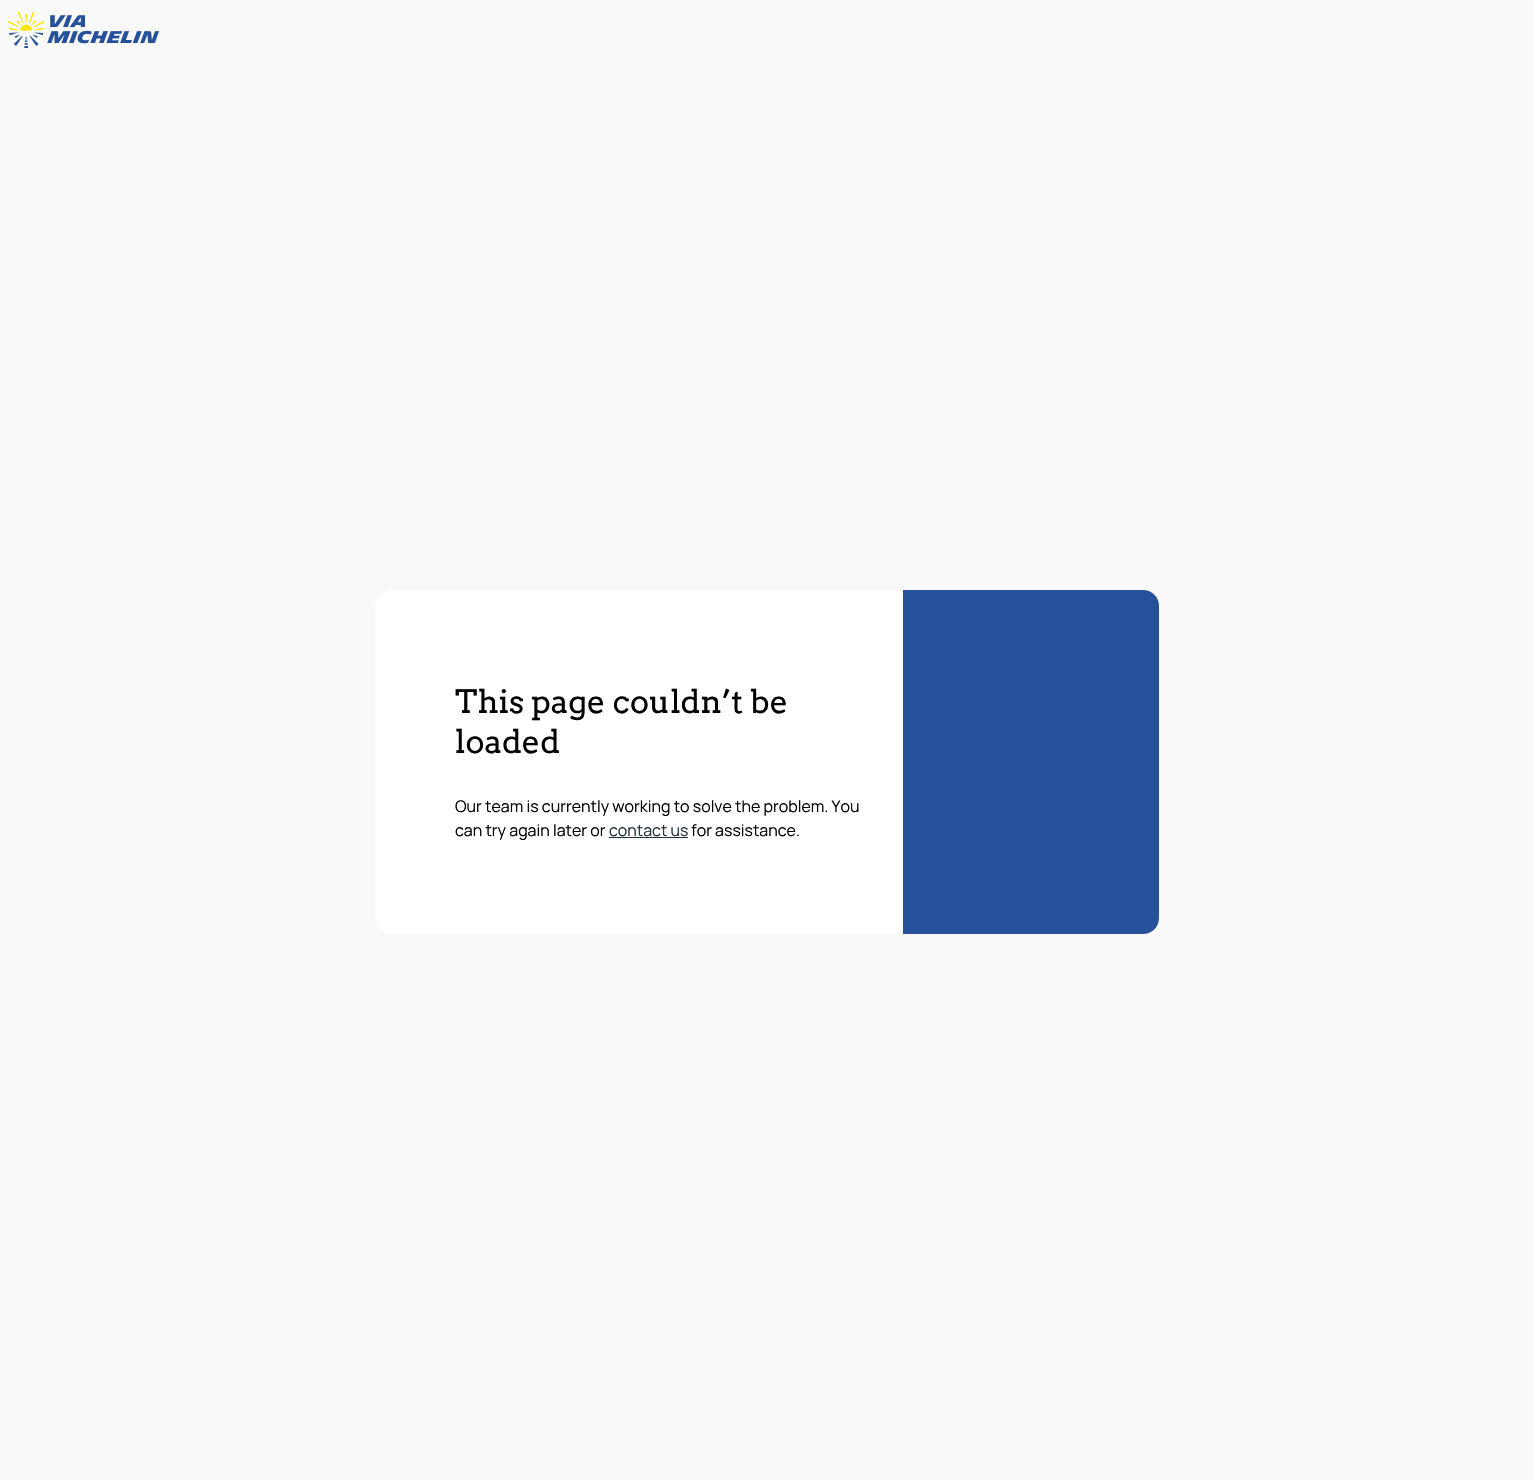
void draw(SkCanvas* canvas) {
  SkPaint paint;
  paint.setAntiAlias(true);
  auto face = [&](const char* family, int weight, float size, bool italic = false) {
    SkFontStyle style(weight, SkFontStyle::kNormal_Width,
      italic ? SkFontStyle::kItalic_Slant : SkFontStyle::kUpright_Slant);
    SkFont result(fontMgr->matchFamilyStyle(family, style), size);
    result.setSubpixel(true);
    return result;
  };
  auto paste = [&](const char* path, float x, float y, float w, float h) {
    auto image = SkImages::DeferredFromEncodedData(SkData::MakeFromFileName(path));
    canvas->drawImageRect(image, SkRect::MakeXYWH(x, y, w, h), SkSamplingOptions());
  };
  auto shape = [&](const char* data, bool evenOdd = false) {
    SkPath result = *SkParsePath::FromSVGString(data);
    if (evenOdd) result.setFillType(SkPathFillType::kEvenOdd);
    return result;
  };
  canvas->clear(0xfff9f9f9);
  paste("img/1.png", 8, 12, 152, 36);
  paint.setColor(0xffffffff);
  canvas->drawRoundRect(SkRect::MakeXYWH(375, 590, 784, 344), 16, 16, paint);
  paint.setColor(0xff1d3140);
  canvas->drawRect(SkRect::MakeXYWH(609, 837, 79, 1), paint);
  paint.setColor(0xff27509b);
  canvas->drawPath(shape("M903 590H1143C1152 590 1159 597 1159 606V918C1159 927 1152 934 1143 934H903Z"), paint);
  auto f0 = face("Arvo", 400, 32);
  paint.setColor(0xff000000);
  canvas->drawString("This page couldn’t be", 455, 713, f0, paint);
  canvas->drawString("loaded", 455, 753, f0, paint);
  auto f1 = face("Manrope", 200, 16);
  canvas->drawString("Our team is currently working to solve the problem. You", 455, 812, f1, paint);
  canvas->drawString("can try again later or", 455, 836, f1, paint);
  paint.setColor(0xff1d3140);
  canvas->drawString("contact us", 609, 836, f1, paint);
  paint.setColor(0xff000000);
  canvas->drawString("for assistance.", 691, 836, f1, paint);
}
